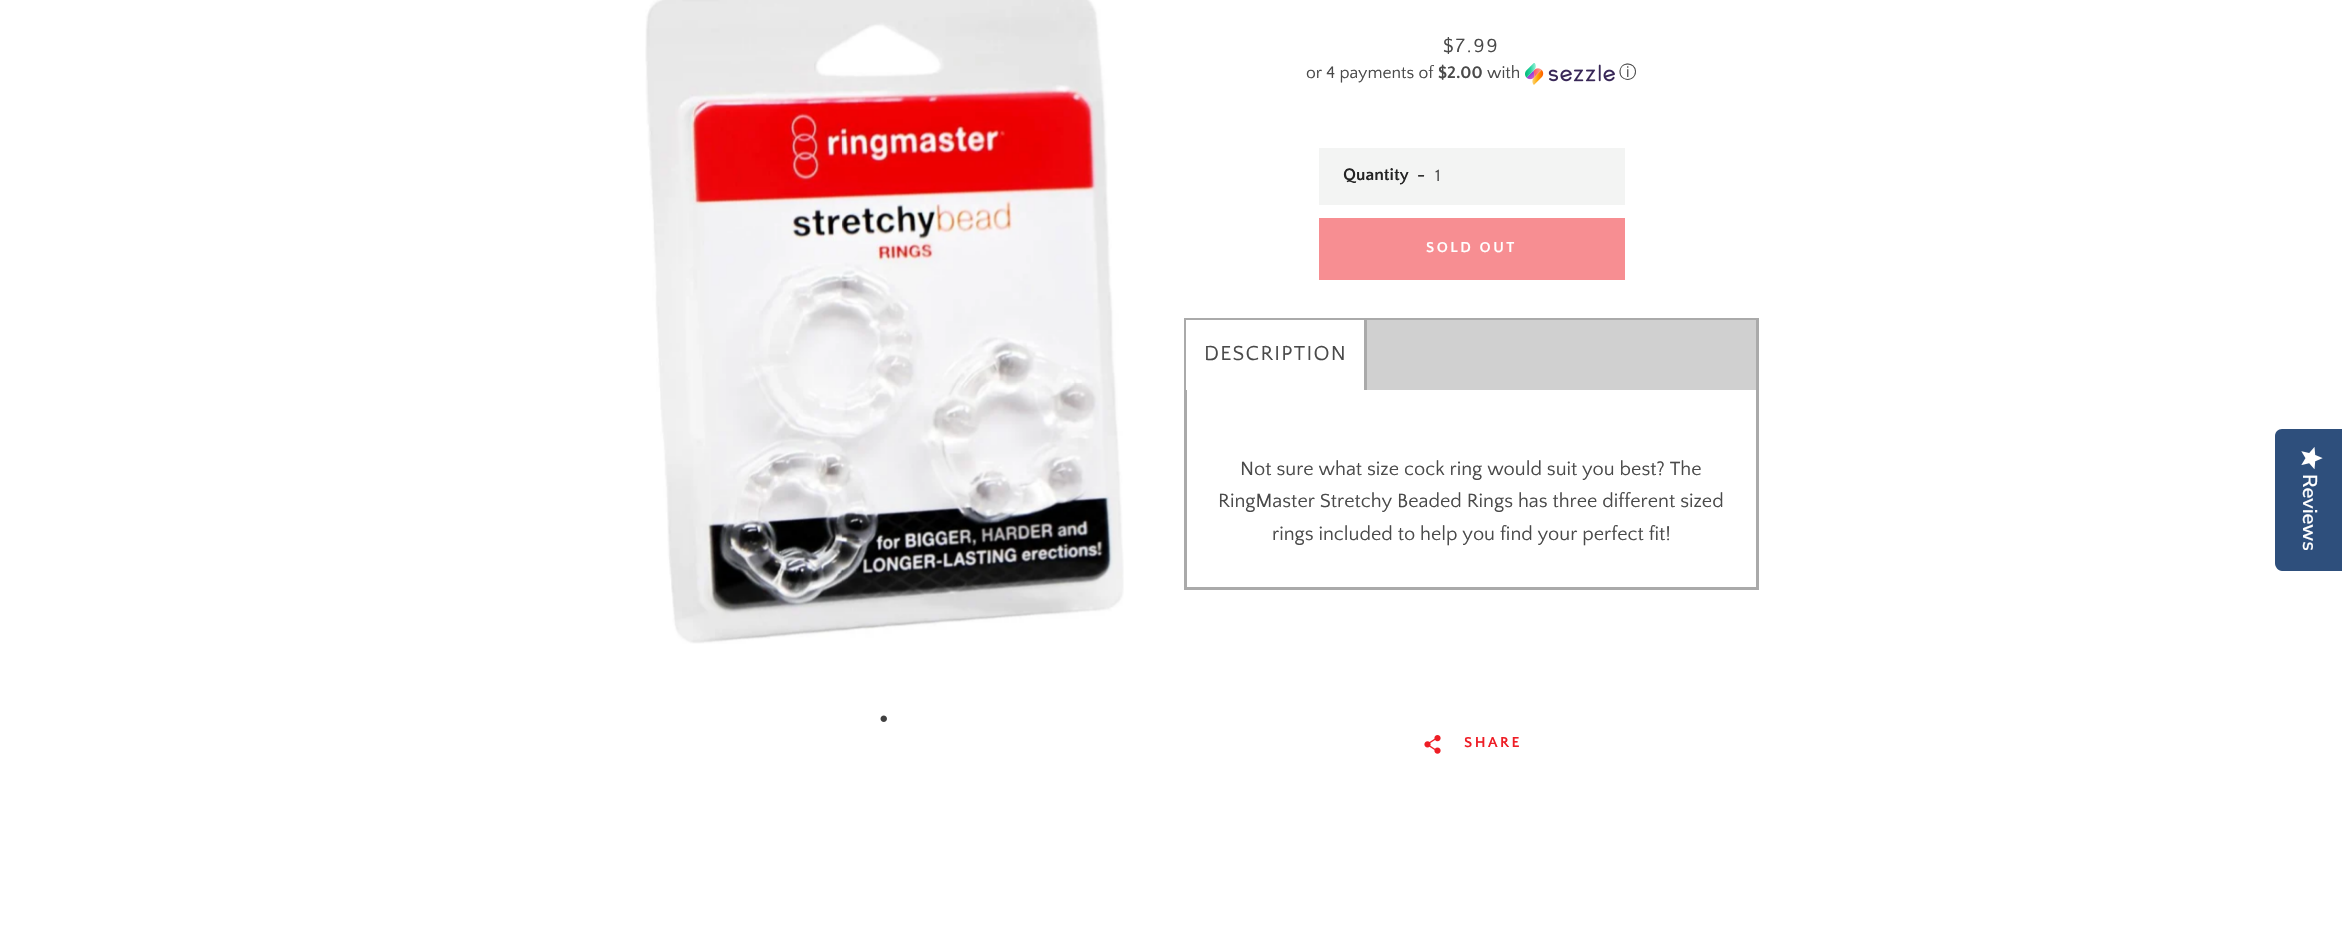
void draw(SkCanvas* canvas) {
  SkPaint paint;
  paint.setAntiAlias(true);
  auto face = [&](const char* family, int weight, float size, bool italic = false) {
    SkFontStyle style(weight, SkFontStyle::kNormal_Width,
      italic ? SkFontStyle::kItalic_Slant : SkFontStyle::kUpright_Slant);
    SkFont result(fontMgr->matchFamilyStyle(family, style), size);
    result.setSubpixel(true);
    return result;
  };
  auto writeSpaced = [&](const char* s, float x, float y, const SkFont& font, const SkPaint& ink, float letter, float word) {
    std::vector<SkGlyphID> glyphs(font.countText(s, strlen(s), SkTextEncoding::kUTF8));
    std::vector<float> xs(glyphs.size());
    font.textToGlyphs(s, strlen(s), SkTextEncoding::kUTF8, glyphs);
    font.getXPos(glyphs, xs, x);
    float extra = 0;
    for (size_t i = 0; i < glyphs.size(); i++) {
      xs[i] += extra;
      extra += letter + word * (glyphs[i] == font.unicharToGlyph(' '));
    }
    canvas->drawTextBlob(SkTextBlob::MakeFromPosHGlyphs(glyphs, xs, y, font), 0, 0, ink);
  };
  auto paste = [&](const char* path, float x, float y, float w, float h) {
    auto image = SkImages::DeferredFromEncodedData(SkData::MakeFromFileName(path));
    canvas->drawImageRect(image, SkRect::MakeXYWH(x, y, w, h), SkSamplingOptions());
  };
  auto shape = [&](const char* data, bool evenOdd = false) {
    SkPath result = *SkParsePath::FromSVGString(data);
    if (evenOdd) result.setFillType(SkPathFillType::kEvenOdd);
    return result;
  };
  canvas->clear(0xffffffff);
  paste("img/1.png", 645, 0, 479, 644);
  paste("img/2.png", 880, 715, 7, 7);
  paste("img/3.png", 1525, 63, 90, 22);
  paint.setColor(0xfff3f4f3);
  canvas->drawRect(SkRect::MakeXYWH(1319, 148, 306, 57), paint);
  paint.setColor(0xfff78e92);
  canvas->drawRect(SkRect::MakeXYWH(1319, 218, 306, 62), paint);
  paint.setStroke(true);
  paint.setStrokeWidth(3);
  paint.setColor(0xffaaaaaa);
  canvas->drawRect(SkRect::MakeXYWH(1185.5f, 319.5f, 572, 269), paint);
  paint.setStroke(false);
  {
    const struct { float x, y, w, h; SkColor color; } items[] = {
      {1367, 320, 389, 70, 0xffd0d0d0},
      {1186, 320, 178, 70, 0xffffffff},
      {1364, 320, 3, 70, 0xffaaaaaa},
    };
    for (auto [x, y, w, h, color] : items) {
      paint.setColor(color);
      canvas->drawRect(SkRect::MakeXYWH(x, y, w, h), paint);
    }
  }
  paste("img/4.png", 1424, 735, 17, 19);
  paint.setColor(0xff2e4f7c);
  canvas->drawPath(shape("M2342 429V571H2282C2278 571 2275 567 2275 563V436C2275 432 2278 429 2282 429Z"), paint);
  paste("img/5.png", 2301, 447, 22, 23);
  auto f0 = face("Quattrocento Sans", 400, 20);
  paint.setColor(0xff4a4a4a);
  writeSpaced("$7.99", 1443, 52, f0, paint, 2, 0);
  auto f1 = face("Quattrocento Sans", 400, 17.5f);
  canvas->drawString("or 4 payments of", 1306, 78, f1, paint);
  auto f2 = face("Quattrocento Sans", 700, 17.5f);
  canvas->drawString("$2.00", 1438, 78, f2, paint);
  canvas->drawString("with", 1487, 78, f1, paint);
  auto f3 = face("WenQuanYi Zen Hei", 500, 17.5f);
  canvas->drawString("ⓘ", 1619, 78, f3, paint);
  paint.setColor(0xff242424);
  canvas->drawString("Quantity", 1343, 180, f2, paint);
  canvas->drawString("-", 1417, 180, f2, paint);
  paint.setColor(0xff4a4a4a);
  canvas->drawString("1", 1435, 181, f1, paint);
  auto f4 = face("Quattrocento Sans", 700, 15);
  paint.setColor(0xffffffff);
  writeSpaced("SOLD OUT", 1426, 252, f4, paint, 2.5f, 0);
  auto f5 = face("Quattrocento Sans", 400, 21.25f);
  paint.setColor(0xff4a4a4a);
  writeSpaced("DESCRIPTION", 1204, 360, f5, paint, 1.25f, 0);
  {
    const struct { const char* s; float x, y; } items[] = {
      {"Not sure what size cock ring would suit you best? The", 1240, 475},
      {"RingMaster Stretchy Beaded Rings has three different sized", 1218, 507},
      {"rings included to help you find your perfect fit!", 1272, 540},
    };
    for (auto [s, x, y] : items) {
      canvas->drawString(s, x, y, f0, paint);
    }
  }
  paint.setColor(0xffee1d25);
  writeSpaced("SHARE", 1464, 747, f4, paint, 2.5f, 0);
  auto f6 = face("Nunito Sans", 200, 20);
  paint.setColor(0xffffffff);
  canvas->save();
  canvas->rotate(90, 2303, 474);
  canvas->drawString("Reviews", 2303, 474, f6, paint);
  canvas->restore();
}
